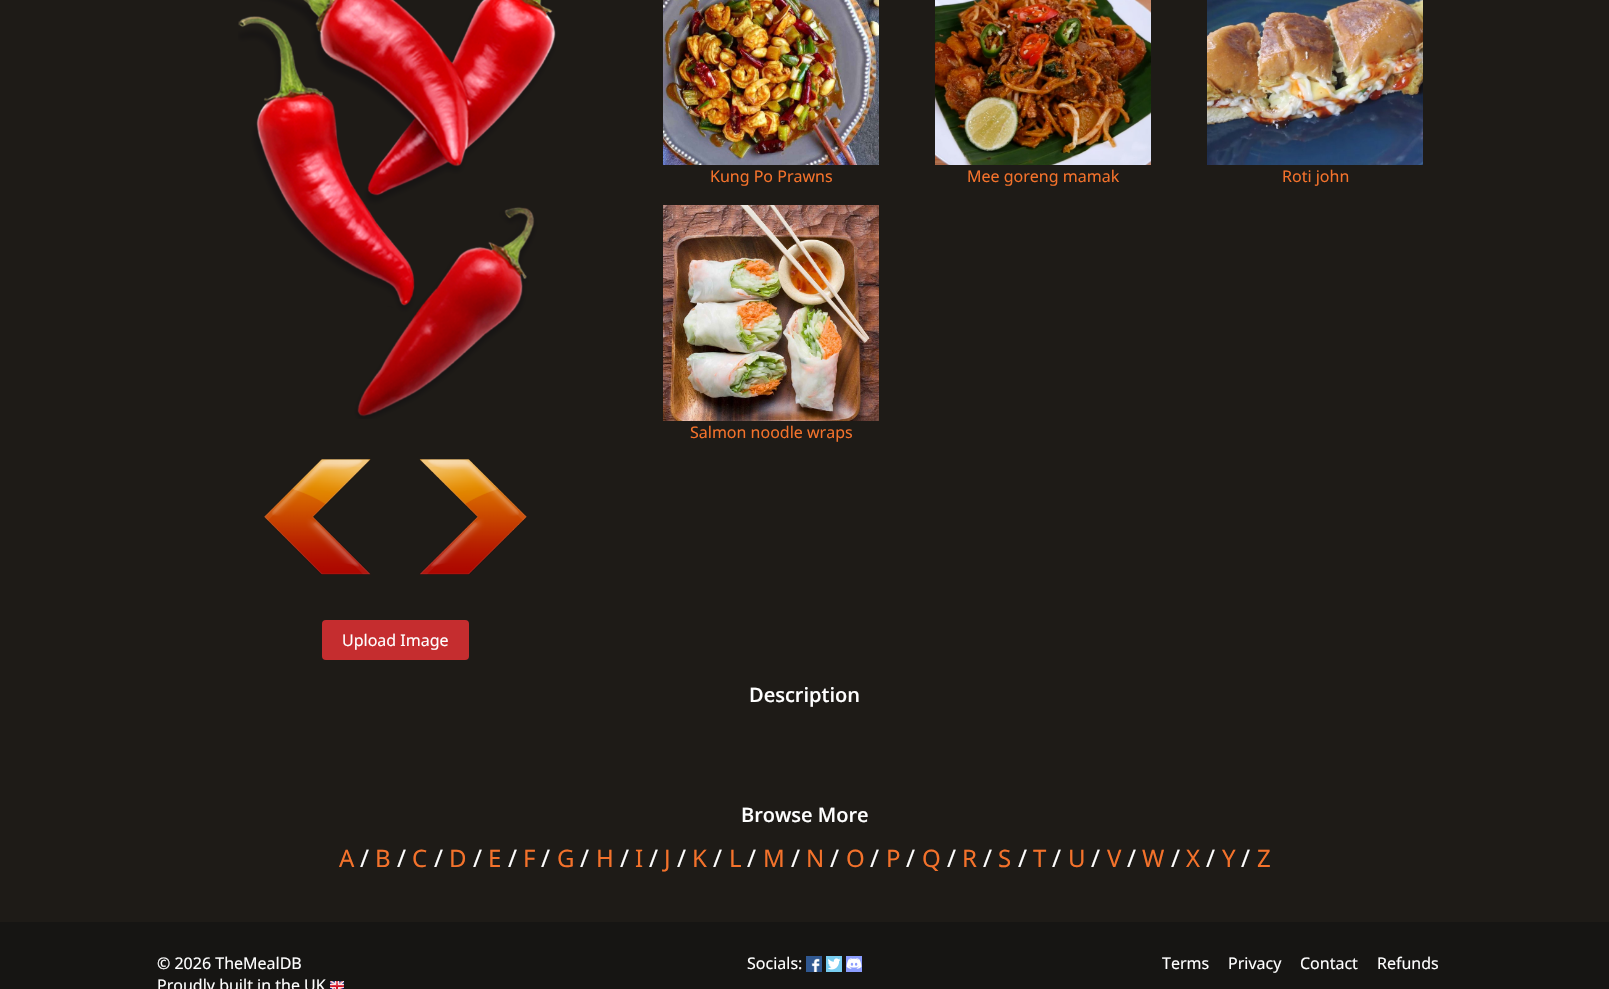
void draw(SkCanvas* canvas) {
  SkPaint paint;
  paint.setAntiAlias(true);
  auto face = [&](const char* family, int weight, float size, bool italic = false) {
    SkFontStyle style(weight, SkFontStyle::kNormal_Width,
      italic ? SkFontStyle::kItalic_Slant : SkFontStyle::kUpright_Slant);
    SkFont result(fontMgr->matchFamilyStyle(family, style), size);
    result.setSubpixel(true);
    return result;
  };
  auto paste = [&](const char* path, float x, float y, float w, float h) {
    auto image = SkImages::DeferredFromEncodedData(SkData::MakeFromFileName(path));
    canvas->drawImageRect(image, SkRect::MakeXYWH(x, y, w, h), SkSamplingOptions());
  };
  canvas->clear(0xff1e1b17);
  paste("img/1.png", 663, 0, 216, 165);
  paste("img/2.png", 935, 0, 216, 165);
  paste("img/3.png", 1207, 0, 216, 165);
  paste("img/4.png", 663, 205, 216, 216);
  paste("img/5.png", 238, 0, 318, 419);
  paste("img/6.png", 264, 459, 107, 116);
  paste("img/7.png", 419, 459, 108, 116);
  paint.setColor(0xffc52d2f);
  canvas->drawRoundRect(SkRect::MakeXYWH(322, 620, 147, 40), 4, 4, paint);
  paint.setColor(0xff161513);
  canvas->drawRect(SkRect::MakeXYWH(0, 922, 1609, 67), paint);
  paste("img/8.png", 330, 981, 14, 8);
  paste("img/9.png", 806, 956, 16, 16);
  paste("img/10.png", 826, 956, 16, 16);
  paste("img/11.png", 846, 956, 16, 16);
  auto f0 = face("Noto Sans", 400, 16);
  paint.setColor(0xfff4722b);
  {
    const struct { const char* s; float x, y; } items[] = {
      {"Kung Po Prawns", 710, 182},
      {"Mee goreng mamak", 967, 182},
      {"Roti john", 1282, 182},
      {"Salmon noodle wraps", 690, 438},
    };
    for (auto [s, x, y] : items) {
      canvas->drawString(s, x, y, f0, paint);
    }
  }
  paint.setColor(0xffffffff);
  canvas->drawString("Upload Image", 342, 646, f0, paint);
  auto f1 = face("Open Sans", 600, 20);
  canvas->drawString("Description", 749, 702, f1, paint);
  canvas->drawString("Browse More", 741, 822, f1, paint);
  auto f2 = face("Noto Sans", 400, 24);
  paint.setColor(0xfff4722b);
  canvas->drawString("A", 339, 867, f2, paint);
  paint.setColor(0xffffffff);
  canvas->drawString("/", 360, 867, f2, paint);
  paint.setColor(0xfff4722b);
  canvas->drawString("B", 375, 867, f2, paint);
  paint.setColor(0xffffffff);
  canvas->drawString("/", 397, 867, f2, paint);
  paint.setColor(0xfff4722b);
  canvas->drawString("C", 412, 867, f2, paint);
  paint.setColor(0xffffffff);
  canvas->drawString("/", 434, 867, f2, paint);
  paint.setColor(0xfff4722b);
  canvas->drawString("D", 449, 867, f2, paint);
  paint.setColor(0xffffffff);
  canvas->drawString("/", 473, 867, f2, paint);
  paint.setColor(0xfff4722b);
  canvas->drawString("E", 488, 867, f2, paint);
  paint.setColor(0xffffffff);
  canvas->drawString("/", 508, 867, f2, paint);
  paint.setColor(0xfff4722b);
  canvas->drawString("F", 523, 867, f2, paint);
  paint.setColor(0xffffffff);
  canvas->drawString("/", 541, 867, f2, paint);
  paint.setColor(0xfff4722b);
  canvas->drawString("G", 557, 867, f2, paint);
  paint.setColor(0xffffffff);
  canvas->drawString("/", 580, 867, f2, paint);
  paint.setColor(0xfff4722b);
  canvas->drawString("H", 596, 867, f2, paint);
  paint.setColor(0xffffffff);
  canvas->drawString("/", 620, 867, f2, paint);
  paint.setColor(0xfff4722b);
  canvas->drawString("I", 635, 867, f2, paint);
  paint.setColor(0xffffffff);
  canvas->drawString("/", 649, 867, f2, paint);
  paint.setColor(0xfff4722b);
  canvas->drawString("J", 664, 867, f2, paint);
  paint.setColor(0xffffffff);
  canvas->drawString("/", 677, 867, f2, paint);
  paint.setColor(0xfff4722b);
  canvas->drawString("K", 692, 867, f2, paint);
  paint.setColor(0xffffffff);
  canvas->drawString("/", 713, 867, f2, paint);
  paint.setColor(0xfff4722b);
  canvas->drawString("L", 729, 867, f2, paint);
  paint.setColor(0xffffffff);
  canvas->drawString("/", 747, 867, f2, paint);
  paint.setColor(0xfff4722b);
  canvas->drawString("M", 763, 867, f2, paint);
  paint.setColor(0xffffffff);
  canvas->drawString("/", 791, 867, f2, paint);
  paint.setColor(0xfff4722b);
  canvas->drawString("N", 806, 867, f2, paint);
  paint.setColor(0xffffffff);
  canvas->drawString("/", 830, 867, f2, paint);
  paint.setColor(0xfff4722b);
  canvas->drawString("O", 846, 867, f2, paint);
  paint.setColor(0xffffffff);
  canvas->drawString("/", 870, 867, f2, paint);
  paint.setColor(0xfff4722b);
  canvas->drawString("P", 886, 867, f2, paint);
  paint.setColor(0xffffffff);
  canvas->drawString("/", 906, 867, f2, paint);
  paint.setColor(0xfff4722b);
  canvas->drawString("Q", 922, 867, f2, paint);
  paint.setColor(0xffffffff);
  canvas->drawString("/", 947, 867, f2, paint);
  paint.setColor(0xfff4722b);
  canvas->drawString("R", 962, 867, f2, paint);
  paint.setColor(0xffffffff);
  canvas->drawString("/", 983, 867, f2, paint);
  paint.setColor(0xfff4722b);
  canvas->drawString("S", 998, 867, f2, paint);
  paint.setColor(0xffffffff);
  canvas->drawString("/", 1018, 867, f2, paint);
  paint.setColor(0xfff4722b);
  canvas->drawString("T", 1033, 867, f2, paint);
  paint.setColor(0xffffffff);
  canvas->drawString("/", 1052, 867, f2, paint);
  paint.setColor(0xfff4722b);
  canvas->drawString("U", 1068, 867, f2, paint);
  paint.setColor(0xffffffff);
  canvas->drawString("/", 1091, 867, f2, paint);
  paint.setColor(0xfff4722b);
  canvas->drawString("V", 1107, 867, f2, paint);
  paint.setColor(0xffffffff);
  canvas->drawString("/", 1127, 867, f2, paint);
  paint.setColor(0xfff4722b);
  canvas->drawString("W", 1142, 867, f2, paint);
  paint.setColor(0xffffffff);
  canvas->drawString("/", 1171, 867, f2, paint);
  paint.setColor(0xfff4722b);
  canvas->drawString("X", 1186, 867, f2, paint);
  paint.setColor(0xffffffff);
  canvas->drawString("/", 1206, 867, f2, paint);
  paint.setColor(0xfff4722b);
  canvas->drawString("Y", 1222, 867, f2, paint);
  paint.setColor(0xffffffff);
  canvas->drawString("/", 1241, 867, f2, paint);
  paint.setColor(0xfff4722b);
  canvas->drawString("Z", 1257, 867, f2, paint);
  paint.setColor(0xffffffff);
  {
    const struct { const char* s; float x, y; } items[] = {
      {"© 2026 TheMealDB", 157, 969},
      {"Proudly built in the UK", 157, 991},
      {"Socials:", 747, 969},
      {"Terms", 1162, 969},
      {"Privacy", 1228, 969},
      {"Contact", 1300, 969},
      {"Refunds", 1377, 969},
    };
    for (auto [s, x, y] : items) {
      canvas->drawString(s, x, y, f0, paint);
    }
  }
}
